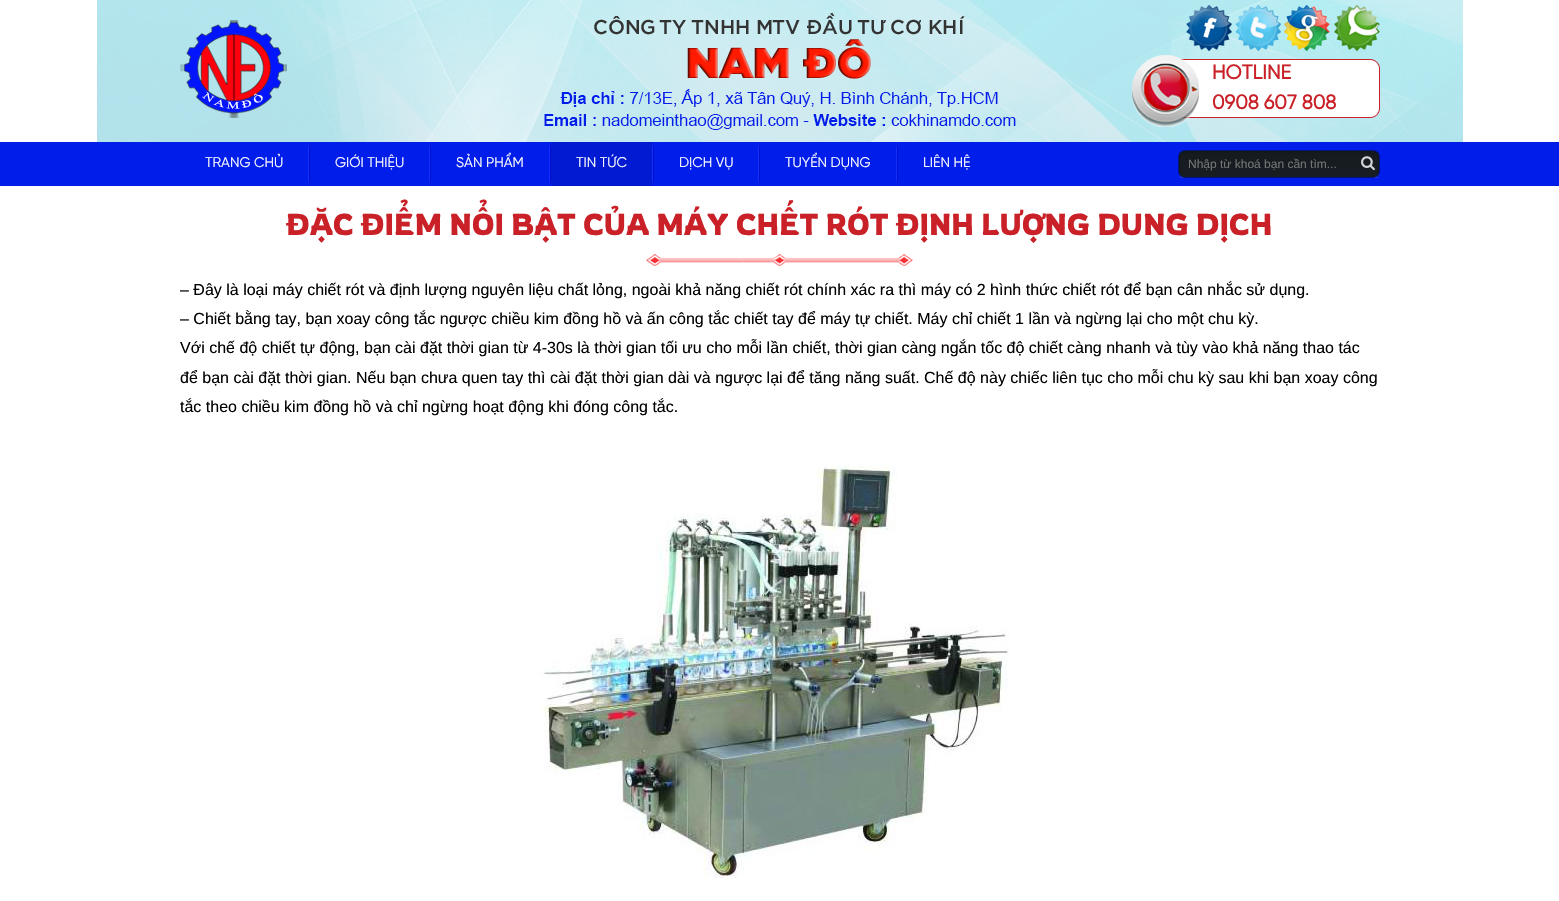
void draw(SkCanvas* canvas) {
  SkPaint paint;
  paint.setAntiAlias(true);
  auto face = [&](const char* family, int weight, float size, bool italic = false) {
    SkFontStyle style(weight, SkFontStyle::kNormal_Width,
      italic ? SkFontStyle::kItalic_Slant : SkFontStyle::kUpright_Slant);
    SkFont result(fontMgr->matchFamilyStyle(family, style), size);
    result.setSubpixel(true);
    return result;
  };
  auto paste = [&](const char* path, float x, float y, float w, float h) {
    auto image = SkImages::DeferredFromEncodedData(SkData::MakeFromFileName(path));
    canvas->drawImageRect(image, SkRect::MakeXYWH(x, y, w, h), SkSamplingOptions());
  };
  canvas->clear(0xffffffff);
  paste("img/1.png", 97, 0, 1366, 142);
  paste("img/2.png", 180, 20, 107, 98);
  paste("img/3.png", 1186, 5, 46, 46);
  paste("img/4.png", 1235, 5, 46, 46);
  paste("img/5.png", 1284, 5, 46, 46);
  paste("img/6.png", 1334, 5, 46, 46);
  paste("img/7.png", 1132, 55, 248, 72);
  paint.setColor(0xff011de9);
  canvas->drawRect(SkRect::MakeXYWH(0, 142, 1559, 44), paint);
  paste("img/8.png", 308, 146, 2, 36);
  paste("img/8.png", 429, 146, 2, 36);
  paste("img/8.png", 549, 146, 2, 36);
  paint.setColor(0xff011ad2);
  canvas->drawRect(SkRect::MakeXYWH(551, 142, 101, 44), paint);
  paste("img/8.png", 652, 146, 2, 36);
  paste("img/8.png", 758, 146, 2, 36);
  paste("img/8.png", 896, 146, 2, 36);
  paste("img/9.png", 1178, 150, 202, 28);
  paste("img/10.png", 1361, 156, 14, 15);
  paste("img/11.png", 646, 254, 267, 12);
  paste("img/12.png", 538, 462, 472, 416);
  auto f0 = face("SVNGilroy", 700, 20);
  paint.setColor(0xffc92127);
  canvas->drawString("HOTLINE", 1212, 79, f0, paint);
  canvas->drawString("0908 607 808", 1212, 109, f0, paint);
  auto f1 = face("SVNGilroy", 400, 14);
  paint.setColor(0xffffffff);
  {
    const struct { const char* s; float x, y; } items[] = {
      {"TRANG CHỦ", 205, 167},
      {"GIỚI THIỆU", 335, 167},
      {"SẢN PHẨM", 456, 167},
      {"TIN TỨC", 576, 167},
      {"DỊCH VỤ", 679, 167},
      {"TUYỂN DỤNG", 785, 167},
      {"LIÊN HỆ", 923, 167},
    };
    for (auto [s, x, y] : items) {
      canvas->drawString(s, x, y, f1, paint);
    }
  }
  auto f2 = face("Liberation Sans", 400, 12);
  paint.setColor(0xff757575);
  canvas->drawString("Nhập từ khoá bạn cần tìm...", 1188, 168, f2, paint);
  auto f3 = face("Rowdies", 400, 30);
  paint.setColor(0xffc92127);
  canvas->drawString("ĐẶC ĐIỂM NỔI BẬT CỦA MÁY CHẾT RÓT ĐỊNH LƯỢNG DUNG DỊCH", 286, 235, f3, paint);
  auto f4 = face("Liberation Sans", 400, 16);
  paint.setColor(0xff000000);
  {
    const struct { const char* s; float x, y; } items[] = {
      {"– Đây là loại máy chiết rót và định lượng nguyên liệu chất lỏng, ngoài khả năng chiết rót chính xác ra thì máy có 2 hình thức chiết rót để bạn cân nhắc sử dụng.", 180, 295},
      {"– Chiết bằng tay, bạn xoay công tắc ngược chiều kim đồng hồ và ấn công tắc chiết tay để máy tự chiết. Máy chỉ chiết 1 lần và ngừng lại cho một chu kỳ.", 180, 324},
      {"Với chế độ chiết tự động, bạn cài đặt thời gian từ 4-30s là thời gian tối ưu cho mỗi lần chiết, thời gian càng ngắn tốc độ chiết càng nhanh và tùy vào khả năng thao tác", 180, 353},
      {"để bạn cài đặt thời gian. Nếu bạn chưa quen tay thì cài đặt thời gian dài và ngược lại để tăng năng suất. Chế độ này chiếc liên tục cho mỗi chu kỳ sau khi bạn xoay công", 180, 383},
      {"tắc theo chiều kim đồng hồ và chỉ ngừng hoạt động khi đóng công tắc.", 180, 412},
    };
    for (auto [s, x, y] : items) {
      canvas->drawString(s, x, y, f4, paint);
    }
  }
}
